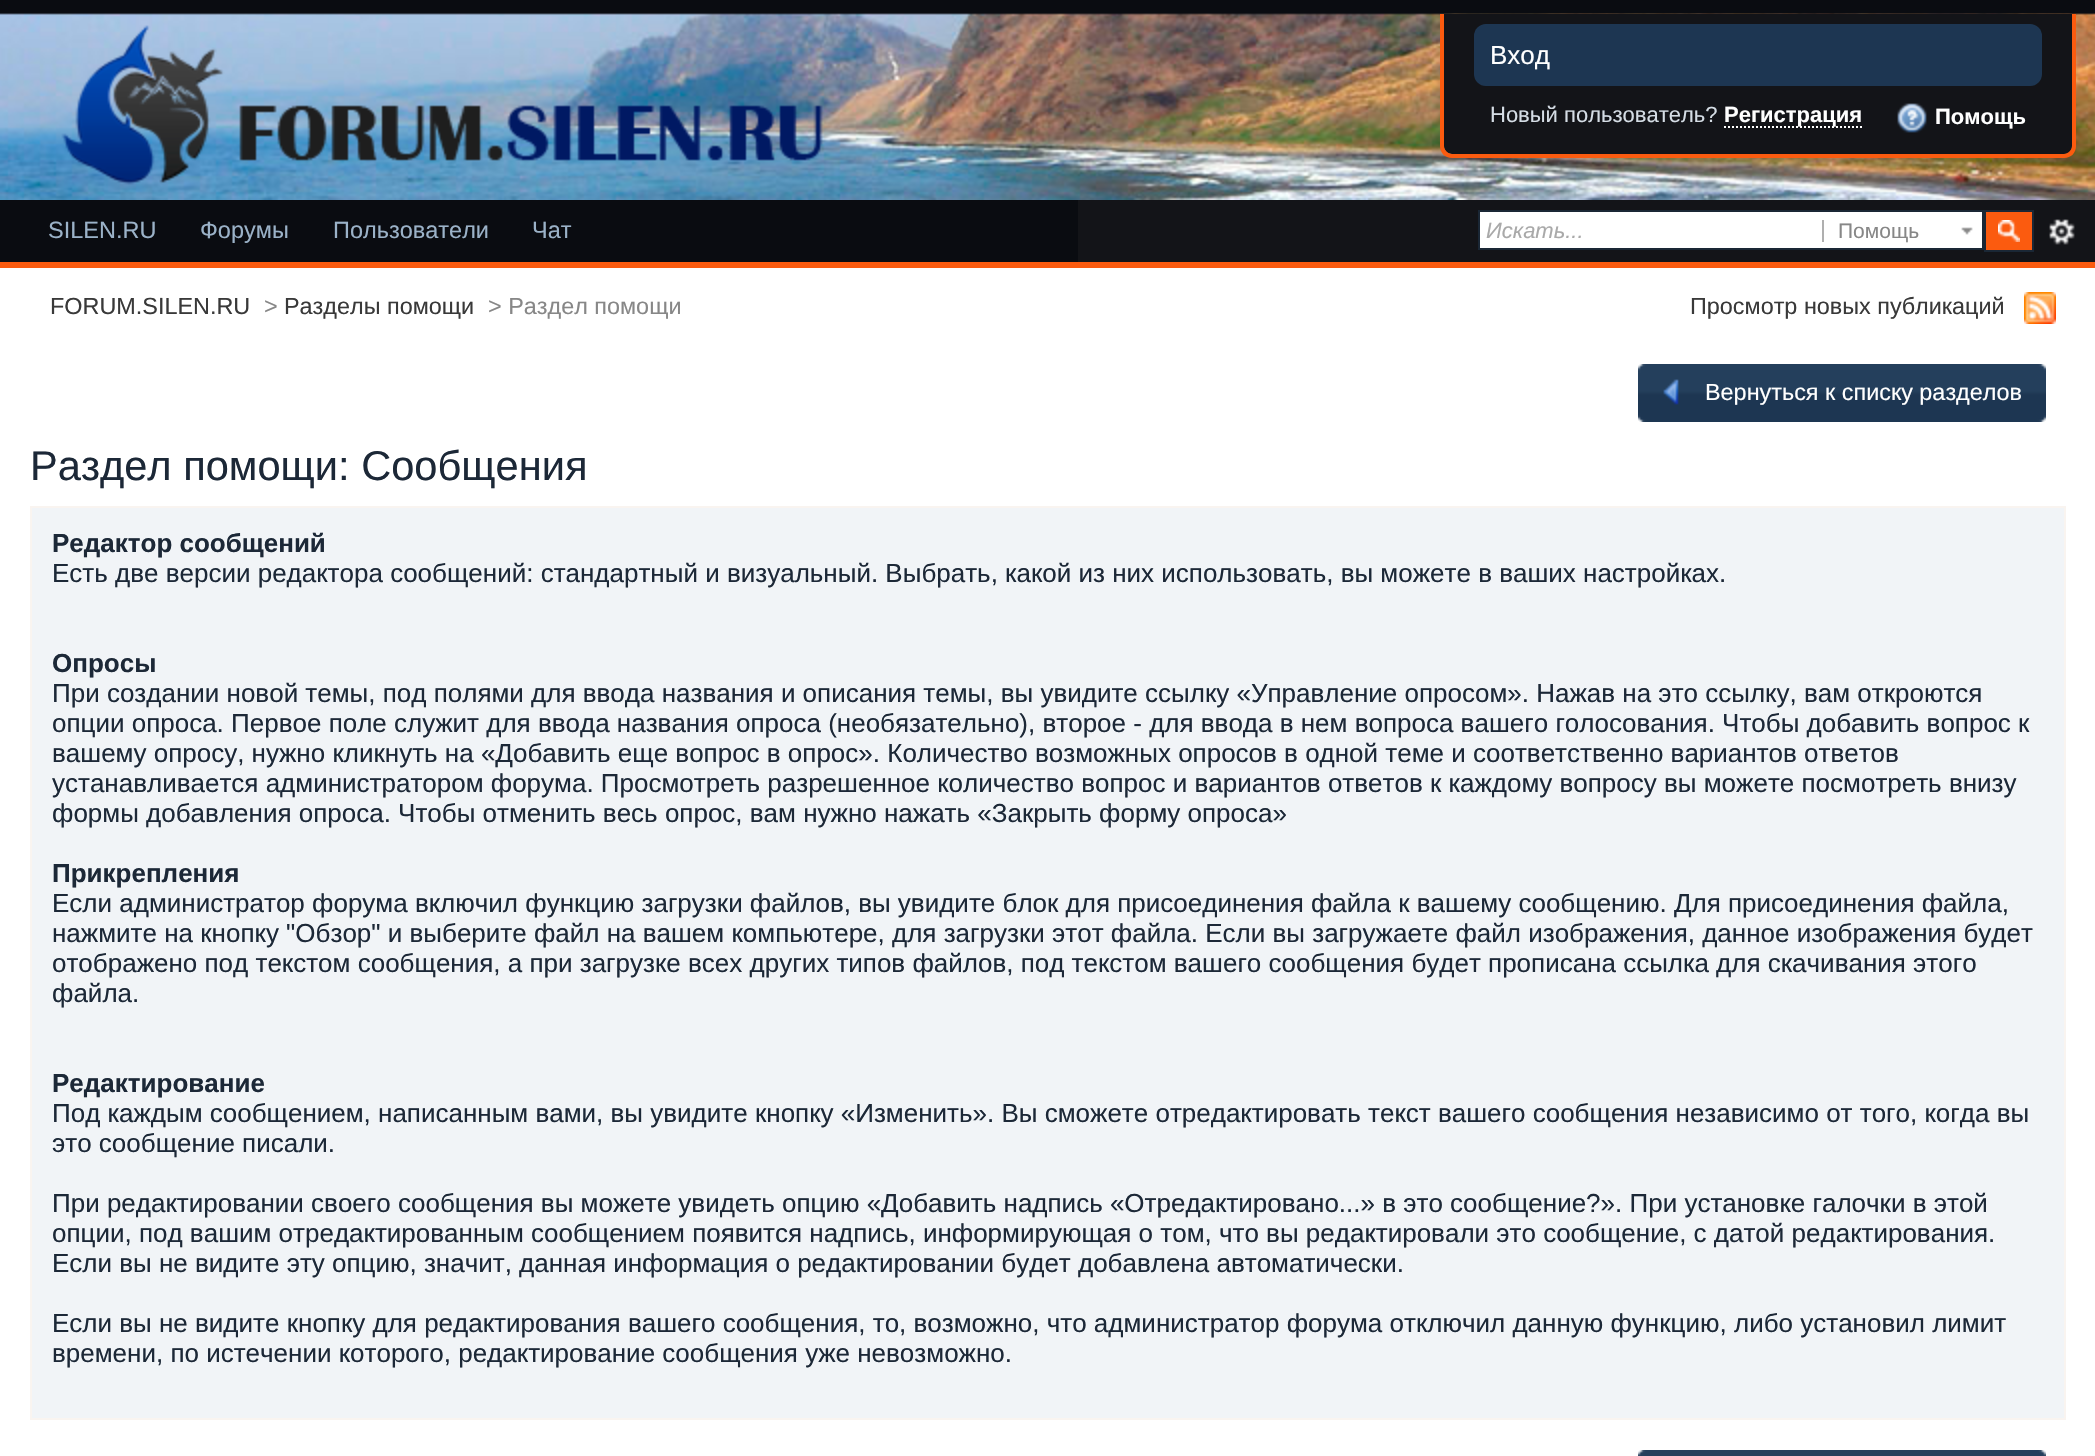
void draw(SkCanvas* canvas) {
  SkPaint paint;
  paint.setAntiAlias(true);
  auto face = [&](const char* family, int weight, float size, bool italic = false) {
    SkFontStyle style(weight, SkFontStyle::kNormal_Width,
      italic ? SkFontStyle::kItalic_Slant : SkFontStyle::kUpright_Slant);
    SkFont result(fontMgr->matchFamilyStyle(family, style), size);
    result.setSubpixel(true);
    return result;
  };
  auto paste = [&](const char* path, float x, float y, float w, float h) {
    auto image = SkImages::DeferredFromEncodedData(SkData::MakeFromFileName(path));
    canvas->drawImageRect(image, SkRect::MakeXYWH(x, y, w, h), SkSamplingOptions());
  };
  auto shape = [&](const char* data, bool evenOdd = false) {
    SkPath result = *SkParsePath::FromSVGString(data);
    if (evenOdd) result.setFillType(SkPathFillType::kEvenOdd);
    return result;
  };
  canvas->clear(0xffffffff);
  paste("img/1.png", 0, 0, 2095, 200);
  paste("img/2.png", 61, 25, 762, 160);
  paint.setColor(0xff131418);
  canvas->drawPath(shape("M1444 14H2072V146C2072 150.5 2068.5 154 2064 154H1452C1447.5 154 1444 150.5 1444 146Z"), paint);
  paint.setColor(0xfffb5b0f);
  canvas->drawPath(shape("M1440 14H2076V146C2076 153 2071 158 2064 158H1452C1445 158 1440 153 1440 146ZM1444 14H2072V146C2072 150 2068 154 2064 154H1452C1448 154 1444 150 1444 146Z", true), paint);
  paint.setColor(0xff1d3652);
  canvas->drawRoundRect(SkRect::MakeXYWH(1474, 24, 568, 62), 12, 12, paint);
  paint.setStroke(true);
  paint.setStrokeWidth(2);
  paint.setColor(0xffffffff);
  paint.setPathEffect(SkDashPathEffect::Make({{2, 2}}, 0));
  canvas->drawPath(shape("M1724 127H1862"), paint);
  paint.setPathEffect(nullptr);
  paste("img/3.png", 1897, 103, 30, 30);
  paint.setStroke(false);
  {
    const struct { float x, y, w, h; SkColor color; } items[] = {
      {1078, 200, 1017, 62, 0xff131418},
      {0, 200, 1078, 62, 0xff0a0c11},
      {0, 262, 2095, 6, 0xfffb5b0f},
    };
    for (auto [x, y, w, h, color] : items) {
      paint.setColor(color);
      canvas->drawRect(SkRect::MakeXYWH(x, y, w, h), paint);
    }
  }
  paint.setColor(0xffffffff);
  canvas->drawRect(SkRect::MakeXYWH(1479, 211, 504, 38), paint);
  paint.setStroke(true);
  paint.setColor(0xff1a2735);
  canvas->drawRect(SkRect::MakeXYWH(1479, 211, 504, 38), paint);
  paste("img/4.png", 1961, 227, 12, 8);
  paint.setStroke(false);
  paint.setColor(0xffafafaf);
  canvas->drawRect(SkRect::MakeXYWH(1822, 220, 2, 22), paint);
  paint.setColor(0xfffb5b0f);
  canvas->drawRect(SkRect::MakeXYWH(1986, 212, 46, 38), paint);
  paste("img/5.png", 1998, 220, 22, 22);
  paint.setStroke(true);
  paint.setColor(0xff1a2735);
  canvas->drawRect(SkRect::MakeXYWH(1985, 211, 48, 40), paint);
  paste("img/6.png", 2049, 219, 26, 26);
  paste("img/7.png", 2024, 292, 32, 32);
  paste("img/8.png", 1638, 364, 12, 58);
  paste("img/9.png", 1650, 364, 396, 58);
  paste("img/10.png", 1663, 379, 16, 26);
  paint.setStroke(false);
  paint.setColor(0xfff1f4f7);
  canvas->drawRect(SkRect::MakeXYWH(31, 507, 2034, 912), paint);
  paint.setStroke(true);
  paint.setColor(0xfff9f4f0);
  canvas->drawRect(SkRect::MakeXYWH(31, 507, 2034, 912), paint);
  paste("img/11.png", 1638, 1450, 12, 6);
  paste("img/12.png", 1650, 1450, 396, 6);
  auto f0 = face("Liberation Sans", 400, 26);
  paint.setStroke(false);
  paint.setColor(0xffffffff);
  canvas->drawString("Вход", 1490, 64, f0, paint);
  auto f1 = face("Liberation Sans", 400, 22);
  paint.setColor(0xffd5dde5);
  canvas->drawString("Новый пользователь?", 1490, 122, f1, paint);
  auto f2 = face("Liberation Sans", 700, 22);
  paint.setColor(0xffffffff);
  canvas->drawString("Регистрация", 1724, 122, f2, paint);
  canvas->drawString("Помощь", 1935, 124, f2, paint);
  auto f3 = face("Liberation Sans", 400, 23.5f);
  paint.setColor(0xff9bb2c8);
  {
    const struct { const char* s; float x, y; } items[] = {
      {"SILEN.RU", 48, 238},
      {"Форумы", 200, 238},
      {"Пользователи", 333, 238},
      {"Чат", 532, 238},
    };
    for (auto [s, x, y] : items) {
      canvas->drawString(s, x, y, f3, paint);
    }
  }
  auto f4 = face("Liberation Sans", 400, 22, true);
  paint.setColor(0xffa9a9a9);
  canvas->drawString("Искать...", 1486, 238, f4, paint);
  auto f5 = face("Liberation Sans", 400, 21);
  paint.setColor(0xff878787);
  canvas->drawString("Помощь", 1838, 238, f5, paint);
  auto f6 = face("Liberation Sans", 400, 23.4f);
  paint.setColor(0xff393939);
  canvas->drawString("FORUM.SILEN.RU", 50, 314, f6, paint);
  paint.setColor(0xff878787);
  canvas->drawString(">", 264, 314, f6, paint);
  paint.setColor(0xff393939);
  canvas->drawString("Разделы помощи", 284, 314, f6, paint);
  paint.setColor(0xff878787);
  canvas->drawString("> Раздел помощи", 488, 314, f6, paint);
  paint.setColor(0xff393939);
  canvas->drawString("Просмотр новых публикаций", 1690, 314, f6, paint);
  paint.setColor(0xffffffff);
  canvas->drawString("Вернуться к списку разделов", 1705, 400, f6, paint);
  auto f7 = face("Liberation Sans", 400, 41.6f);
  paint.setColor(0xff1c2837);
  canvas->drawString("Раздел помощи: Сообщения", 30, 480, f7, paint);
  auto f8 = face("Liberation Sans", 700, 26);
  canvas->drawString("Редактор сообщений", 52, 552, f8, paint);
  canvas->drawString("Есть две версии редактора сообщений: стандартный и визуальный. Выбрать, какой из них использовать, вы можете в ваших настройках.", 52, 582, f0, paint);
  canvas->drawString("Опросы", 52, 672, f8, paint);
  {
    const struct { const char* s; float x, y; } items[] = {
      {"При создании новой темы, под полями для ввода названия и описания темы, вы увидите ссылку «Управление опросом». Нажав на это ссылку, вам откроются", 52, 702},
      {"опции опроса. Первое поле служит для ввода названия опроса (необязательно), второе - для ввода в нем вопроса вашего голосования. Чтобы добавить вопрос к", 52, 732},
      {"вашему опросу, нужно кликнуть на «Добавить еще вопрос в опрос». Количество возможных опросов в одной теме и соответственно вариантов ответов", 52, 762},
      {"устанавливается администратором форума. Просмотреть разрешенное количество вопрос и вариантов ответов к каждому вопросу вы можете посмотреть внизу", 52, 792},
      {"формы добавления опроса. Чтобы отменить весь опрос, вам нужно нажать «Закрыть форму опроса»", 52, 822},
    };
    for (auto [s, x, y] : items) {
      canvas->drawString(s, x, y, f0, paint);
    }
  }
  canvas->drawString("Прикрепления", 52, 882, f8, paint);
  {
    const struct { const char* s; float x, y; } items[] = {
      {"Если администратор форума включил функцию загрузки файлов, вы увидите блок для присоединения файла к вашему сообщению. Для присоединения файла,", 52, 912},
      {"нажмите на кнопку \"Обзор\" и выберите файл на вашем компьютере, для загрузки этот файла. Если вы загружаете файл изображения, данное изображения будет", 52, 942},
      {"отображено под текстом сообщения, а при загрузке всех других типов файлов, под текстом вашего сообщения будет прописана ссылка для скачивания этого", 52, 972},
      {"файла.", 52, 1002},
    };
    for (auto [s, x, y] : items) {
      canvas->drawString(s, x, y, f0, paint);
    }
  }
  canvas->drawString("Редактирование", 52, 1092, f8, paint);
  {
    const struct { const char* s; float x, y; } items[] = {
      {"Под каждым сообщением, написанным вами, вы увидите кнопку «Изменить». Вы сможете отредактировать текст вашего сообщения независимо от того, когда вы", 52, 1122},
      {"это сообщение писали.", 52, 1152},
      {"При редактировании своего сообщения вы можете увидеть опцию «Добавить надпись «Отредактировано...» в это сообщение?». При установке галочки в этой", 52, 1212},
      {"опции, под вашим отредактированным сообщением появится надпись, информирующая о том, что вы редактировали это сообщение, с датой редактирования.", 52, 1242},
      {"Если вы не видите эту опцию, значит, данная информация о редактировании будет добавлена автоматически.", 52, 1272},
      {"Если вы не видите кнопку для редактирования вашего сообщения, то, возможно, что администратор форума отключил данную функцию, либо установил лимит", 52, 1332},
      {"времени, по истечении которого, редактирование сообщения уже невозможно.", 52, 1362},
    };
    for (auto [s, x, y] : items) {
      canvas->drawString(s, x, y, f0, paint);
    }
  }
}
